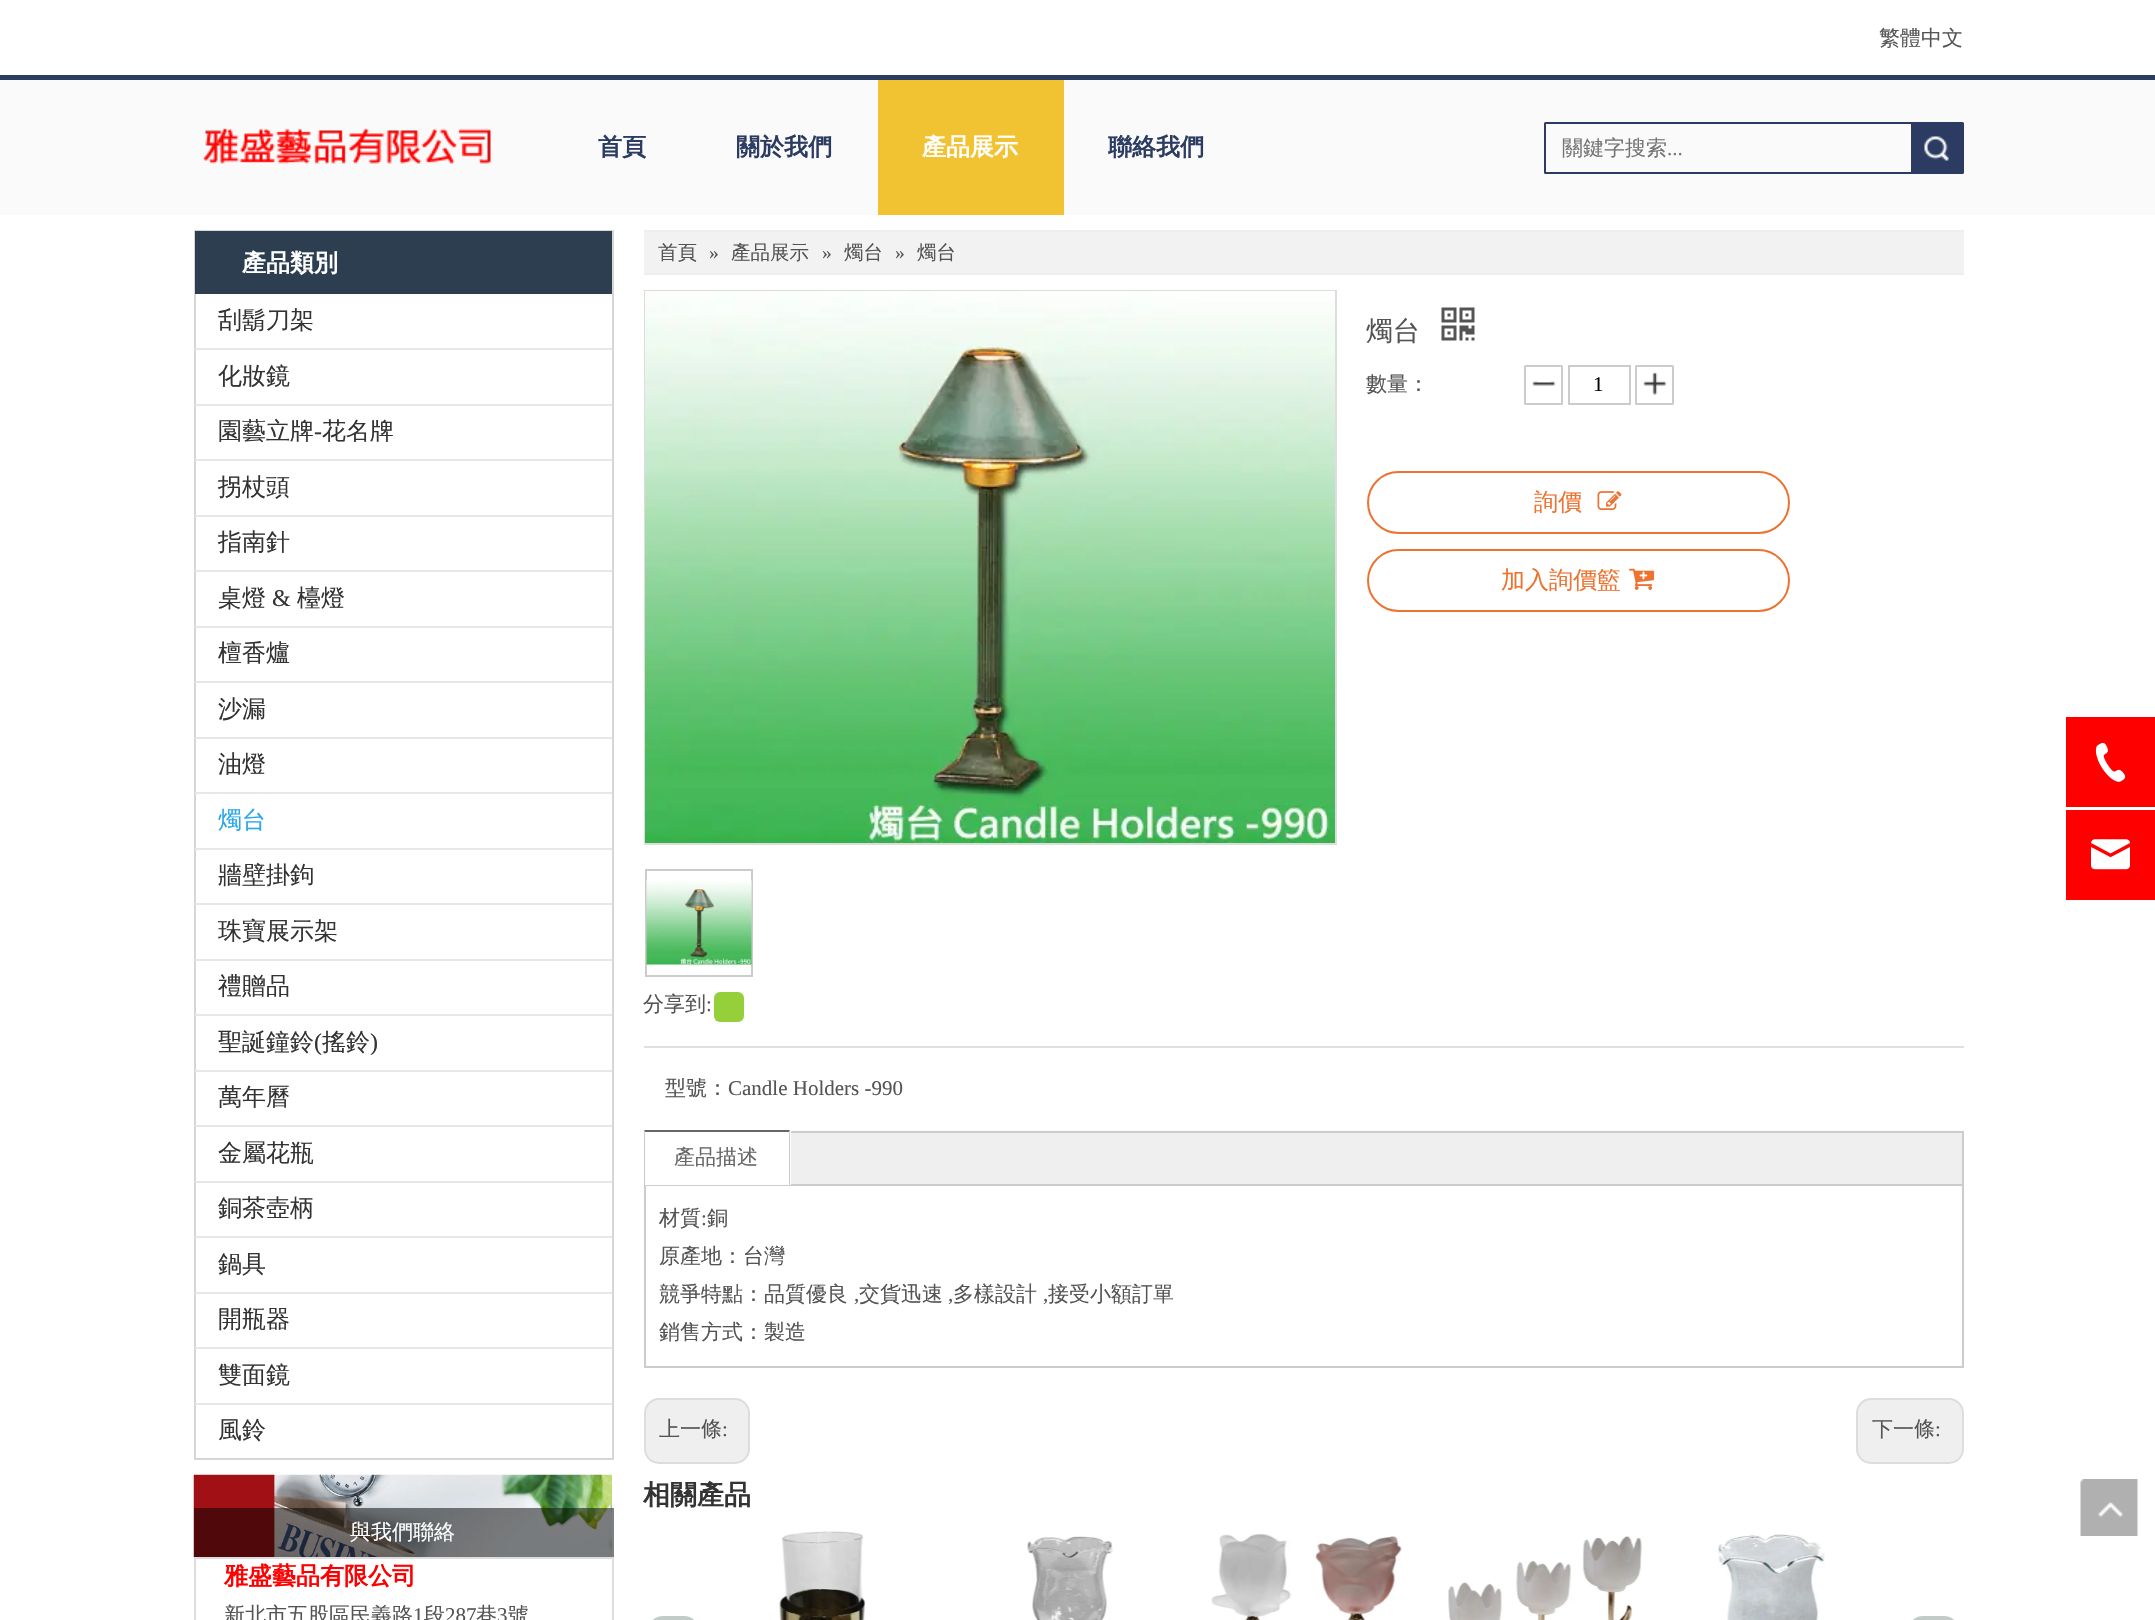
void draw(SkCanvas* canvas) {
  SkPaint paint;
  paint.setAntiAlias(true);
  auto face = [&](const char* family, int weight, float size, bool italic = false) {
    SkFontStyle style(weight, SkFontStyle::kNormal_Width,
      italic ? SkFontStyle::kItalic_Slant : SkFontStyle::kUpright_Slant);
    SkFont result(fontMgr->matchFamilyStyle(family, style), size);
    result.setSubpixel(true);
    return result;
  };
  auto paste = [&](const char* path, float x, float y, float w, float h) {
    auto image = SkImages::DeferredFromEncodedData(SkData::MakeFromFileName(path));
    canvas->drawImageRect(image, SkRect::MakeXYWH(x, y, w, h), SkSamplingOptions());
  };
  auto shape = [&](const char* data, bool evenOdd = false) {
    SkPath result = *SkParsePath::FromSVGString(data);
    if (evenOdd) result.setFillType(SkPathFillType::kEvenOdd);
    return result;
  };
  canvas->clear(0xffffffff);
  paint.setColor(0xfffafafa);
  canvas->drawRect(SkRect::MakeXYWH(0, 80, 2155, 135), paint);
  paint.setColor(0xff2b3b62);
  canvas->drawRect(SkRect::MakeXYWH(0, 75, 2155, 5), paint);
  paste("img/1.png", 203, 128, 288, 36);
  paint.setColor(0xfff1c232);
  canvas->drawRect(SkRect::MakeXYWH(878, 80, 186, 135), paint);
  paint.setStroke(true);
  paint.setStrokeWidth(2);
  paint.setColor(0xff2b3b62);
  canvas->drawRoundRect(SkRect::MakeXYWH(1545, 123, 418, 50), 0.5f, 0.5f, paint);
  paint.setStroke(false);
  canvas->drawRect(SkRect::MakeXYWH(1911, 124, 51, 48), paint);
  paste("img/2.png", 1924, 136, 25, 25);
  paint.setStroke(true);
  paint.setColor(0xffd6d6d6);
  canvas->drawRect(SkRect::MakeXYWH(195, 231, 418, 1228), paint);
  paint.setStroke(false);
  {
    const struct { float x, y, w, h; SkColor color; } items[] = {
      {195, 231, 417, 63, 0xff2c3e50},
      {195, 348, 417, 2, 0xffe7e7e7},
      {195, 404, 417, 2, 0xffe7e7e7},
      {195, 459, 417, 2, 0xffe7e7e7},
      {195, 515, 417, 2, 0xffe7e7e7},
      {195, 570, 417, 2, 0xffe7e7e7},
      {195, 626, 417, 2, 0xffe7e7e7},
      {195, 681, 417, 2, 0xffe7e7e7},
      {195, 737, 417, 2, 0xffe7e7e7},
      {195, 792, 417, 2, 0xffe7e7e7},
      {195, 848, 417, 2, 0xffe7e7e7},
      {195, 903, 417, 2, 0xffe7e7e7},
      {195, 959, 417, 2, 0xffe7e7e7},
      {195, 1014, 417, 2, 0xffe7e7e7},
      {195, 1070, 417, 2, 0xffe7e7e7},
      {195, 1125, 417, 2, 0xffe7e7e7},
      {195, 1181, 417, 2, 0xffe7e7e7},
      {195, 1236, 417, 2, 0xffe7e7e7},
      {195, 1292, 417, 2, 0xffe7e7e7},
      {195, 1347, 417, 2, 0xffe7e7e7},
      {195, 1403, 417, 2, 0xffe7e7e7},
    };
    for (auto [x, y, w, h, color] : items) {
      paint.setColor(color);
      canvas->drawRect(SkRect::MakeXYWH(x, y, w, h), paint);
    }
  }
  paste("img/3.png", 193, 1474, 419, 83);
  paint.setColor(0x80000000);
  canvas->drawRect(SkRect::MakeXYWH(194, 1508, 420, 49), paint);
  paint.setStroke(true);
  paint.setColor(0xffdddddd);
  canvas->drawRect(SkRect::MakeXYWH(195, 1558, 418, 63), paint);
  paint.setStroke(false);
  {
    const struct { float x, y, w, h; SkColor color; } items[] = {
      {644, 232, 1320, 41, 0xfff2f2f2},
      {644, 230, 1320, 2, 0xffeeeeee},
      {644, 273, 1320, 2, 0xffeeeeee},
    };
    for (auto [x, y, w, h, color] : items) {
      paint.setColor(color);
      canvas->drawRect(SkRect::MakeXYWH(x, y, w, h), paint);
    }
  }
  paste("img/4.png", 1441, 307, 34, 34);
  paste("img/5.png", 1532, 381, 24, 5);
  paint.setStroke(true);
  paint.setColor(0xffcccccc);
  canvas->drawRoundRect(SkRect::MakeXYWH(1525, 366, 37, 38), 0.5f, 0.5f, paint);
  canvas->drawRect(SkRect::MakeXYWH(1569, 366, 61, 38), paint);
  paste("img/6.png", 1643, 372, 24, 23);
  canvas->drawRoundRect(SkRect::MakeXYWH(1636, 366, 37, 38), 0.5f, 0.5f, paint);
  paint.setColor(0xffec7331);
  canvas->drawRoundRect(SkRect::MakeXYWH(1368, 472, 421, 61), 30.5f, 30.5f, paint);
  paste("img/7.png", 1597, 491, 25, 19);
  canvas->drawRoundRect(SkRect::MakeXYWH(1368, 550, 421, 61), 30.5f, 30.5f, paint);
  paste("img/8.png", 1629, 568, 26, 22);
  paint.setColor(0xffdddddd);
  canvas->drawRect(SkRect::MakeXYWH(645, 291, 691, 553), paint);
  paste("img/9.png", 645, 291, 690, 552);
  paint.setColor(0xffcccccc);
  canvas->drawRect(SkRect::MakeXYWH(646, 870, 106, 106), paint);
  paste("img/10.png", 646, 880, 106, 85);
  paint.setStroke(false);
  paint.setColor(0xff95d03a);
  canvas->drawRoundRect(SkRect::MakeXYWH(714, 992, 30, 30), 6, 6, paint);
  paint.setColor(0xffdfdfdf);
  canvas->drawRect(SkRect::MakeXYWH(644, 1046, 1320, 2), paint);
  paint.setStroke(true);
  paint.setColor(0xffcccccc);
  canvas->drawRect(SkRect::MakeXYWH(645, 1132, 1318, 235), paint);
  paint.setStroke(false);
  {
    const struct { float x, y, w, h; SkColor color; } items[] = {
      {791, 1133, 1171, 51, 0xffefefef},
      {645, 1184, 1317, 2, 0xffcccccc},
      {644, 1131, 147, 54, 0xffffffff},
    };
    for (auto [x, y, w, h, color] : items) {
      paint.setColor(color);
      canvas->drawRect(SkRect::MakeXYWH(x, y, w, h), paint);
    }
  }
  paint.setColor(0xff666666);
  canvas->drawPath(shape("M644 1130H790L789 1132H645Z"), paint);
  paint.setColor(0xffcccccc);
  canvas->drawPath(shape("M790 1130V1185H789V1132Z"), paint);
  canvas->drawPath(shape("M644 1185V1130L645 1132V1185Z"), paint);
  paint.setColor(0xffefefef);
  canvas->drawRoundRect(SkRect::MakeXYWH(645, 1399, 104, 64), 14, 14, paint);
  paint.setStroke(true);
  paint.setColor(0xffdddddd);
  canvas->drawRoundRect(SkRect::MakeXYWH(645, 1399, 104, 64), 14, 14, paint);
  paint.setStroke(false);
  paint.setColor(0xffefefef);
  canvas->drawRoundRect(SkRect::MakeXYWH(1857, 1399, 106, 64), 14, 14, paint);
  paint.setStroke(true);
  paint.setColor(0xffdddddd);
  canvas->drawRoundRect(SkRect::MakeXYWH(1857, 1399, 106, 64), 14, 14, paint);
  paste("img/11.png", 779, 1531, 87, 89);
  paste("img/12.png", 1027, 1536, 86, 84);
  paste("img/13.png", 1211, 1533, 191, 87);
  paste("img/14.png", 1448, 1536, 194, 84);
  paste("img/15.png", 1718, 1534, 107, 86);
  paint.setStroke(false);
  paint.setColor(0xffc3cbc8);
  canvas->drawRoundRect(SkRect::MakeXYWH(648, 1616, 51, 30), 25.5f, 25.5f, paint);
  canvas->drawRoundRect(SkRect::MakeXYWH(1908, 1616, 51, 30), 25.5f, 25.5f, paint);
  paint.setColor(0xffff0000);
  canvas->drawRect(SkRect::MakeXYWH(2066, 717, 89, 90), paint);
  paste("img/16.png", 2095, 742, 31, 40);
  canvas->drawRect(SkRect::MakeXYWH(2066, 810, 89, 90), paint);
  paste("img/17.png", 2091, 839, 39, 31);
  paste("img/18.png", 2080, 1479, 58, 57);
  auto f0 = face("WenQuanYi Zen Hei", 500, 21);
  paint.setColor(0xff545454);
  canvas->drawString("繁體中文", 1879, 45, f0, paint);
  auto f1 = face("WenQuanYi Zen Hei", 700, 24);
  paint.setColor(0xff2b3b62);
  canvas->drawString("首頁", 598, 155, f1, paint);
  canvas->drawString("關於我們", 736, 155, f1, paint);
  paint.setColor(0xffffffff);
  canvas->drawString("產品展示", 922, 155, f1, paint);
  paint.setColor(0xff2b3b62);
  canvas->drawString("聯絡我們", 1108, 155, f1, paint);
  paint.setColor(0xff757575);
  canvas->drawString("關鍵字搜索", 1562, 155, f0, paint);
  auto f2 = face("Liberation Serif", 400, 21);
  canvas->drawString("...", 1667, 155, f2, paint);
  paint.setColor(0xffffffff);
  canvas->drawString("產品類別", 242, 271, f1, paint);
  auto f3 = face("WenQuanYi Zen Hei", 500, 24);
  paint.setColor(0xff333333);
  {
    const struct { const char* s; float x, y; } items[] = {
      {"刮鬍刀架", 218, 328},
      {"化妝鏡", 218, 384},
      {"園藝立牌", 218, 439},
    };
    for (auto [s, x, y] : items) {
      canvas->drawString(s, x, y, f3, paint);
    }
  }
  auto f4 = face("Liberation Serif", 400, 24);
  canvas->drawString("-", 314, 439, f4, paint);
  {
    const struct { const char* s; float x, y; } items[] = {
      {"花名牌", 322, 439},
      {"拐杖頭", 218, 495},
      {"指南針", 218, 550},
      {"桌燈", 218, 606},
    };
    for (auto [s, x, y] : items) {
      canvas->drawString(s, x, y, f3, paint);
    }
  }
  canvas->drawString("&", 272, 606, f4, paint);
  {
    const struct { const char* s; float x, y; } items[] = {
      {"檯燈", 297, 606},
      {"檀香爐", 218, 661},
      {"沙漏", 218, 717},
      {"油燈", 218, 772},
    };
    for (auto [s, x, y] : items) {
      canvas->drawString(s, x, y, f3, paint);
    }
  }
  paint.setColor(0xff2aa7ea);
  canvas->drawString("燭台", 218, 828, f3, paint);
  paint.setColor(0xff333333);
  {
    const struct { const char* s; float x, y; } items[] = {
      {"牆壁掛鉤", 218, 883},
      {"珠寶展示架", 218, 939},
      {"禮贈品", 218, 994},
      {"聖誕鐘鈴", 218, 1050},
    };
    for (auto [s, x, y] : items) {
      canvas->drawString(s, x, y, f3, paint);
    }
  }
  canvas->drawString("(", 314, 1050, f4, paint);
  canvas->drawString("搖鈴", 322, 1050, f3, paint);
  canvas->drawString(")", 370, 1050, f4, paint);
  {
    const struct { const char* s; float x, y; } items[] = {
      {"萬年曆", 218, 1105},
      {"金屬花瓶", 218, 1161},
      {"銅茶壺柄", 218, 1216},
      {"鍋具", 218, 1272},
      {"開瓶器", 218, 1327},
      {"雙面鏡", 218, 1383},
      {"風鈴", 218, 1438},
    };
    for (auto [s, x, y] : items) {
      canvas->drawString(s, x, y, f3, paint);
    }
  }
  paint.setColor(0xffffffff);
  canvas->drawString("與我們聯絡", 350, 1539, f0, paint);
  paint.setColor(0xffff0000);
  canvas->drawString("雅盛藝品有限公司", 224, 1584, f1, paint);
  paint.setColor(0xff545454);
  canvas->drawString("新北市五股區民義路", 224, 1622, f0, paint);
  canvas->drawString("1", 413, 1622, f2, paint);
  canvas->drawString("段", 424, 1622, f0, paint);
  canvas->drawString("287", 445, 1622, f2, paint);
  canvas->drawString("巷", 476, 1622, f0, paint);
  canvas->drawString("3", 497, 1622, f2, paint);
  canvas->drawString("號", 508, 1622, f0, paint);
  auto f5 = face("WenQuanYi Zen Hei", 500, 19.5f);
  canvas->drawString("首頁", 658, 259, f5, paint);
  auto f6 = face("Liberation Serif", 400, 19.5f);
  canvas->drawString("»", 709, 259, f6, paint);
  canvas->drawString("產品展示", 731, 259, f5, paint);
  canvas->drawString("»", 822, 259, f6, paint);
  canvas->drawString("燭台", 844, 259, f5, paint);
  canvas->drawString("»", 895, 259, f6, paint);
  canvas->drawString("燭台", 917, 259, f5, paint);
  auto f7 = face("WenQuanYi Zen Hei", 500, 27);
  canvas->drawString("燭台", 1366, 340, f7, paint);
  canvas->drawString("數量：", 1366, 391, f0, paint);
  paint.setColor(0xff000000);
  canvas->drawString("1", 1593, 391, f2, paint);
  paint.setColor(0xffec7331);
  canvas->drawString("詢價", 1534, 510, f3, paint);
  canvas->drawString("加入詢價籃", 1501, 588, f3, paint);
  paint.setColor(0xff545454);
  canvas->drawString("分享到", 643, 1011, f0, paint);
  canvas->drawString(":", 706, 1011, f2, paint);
  canvas->drawString("型號：", 665, 1095, f0, paint);
  canvas->drawString("Candle Holders -990", 728, 1095, f2, paint);
  paint.setColor(0xff666666);
  canvas->drawString("產品描述", 674, 1164, f0, paint);
  paint.setColor(0xff545454);
  canvas->drawString("材質", 659, 1225, f0, paint);
  canvas->drawString(":", 701, 1225, f2, paint);
  {
    const struct { const char* s; float x, y; } items[] = {
      {"銅", 707, 1225},
      {"原產地：台灣", 659, 1263},
      {"競爭特點：品質優良", 659, 1301},
    };
    for (auto [s, x, y] : items) {
      canvas->drawString(s, x, y, f0, paint);
    }
  }
  canvas->drawString(",", 854, 1301, f2, paint);
  canvas->drawString("交貨迅速", 859, 1301, f0, paint);
  canvas->drawString(",", 948, 1301, f2, paint);
  canvas->drawString("多樣設計", 953, 1301, f0, paint);
  canvas->drawString(",", 1043, 1301, f2, paint);
  {
    const struct { const char* s; float x, y; } items[] = {
      {"接受小額訂單", 1048, 1301},
      {"銷售方式：製造", 659, 1339},
      {"上一條", 659, 1436},
    };
    for (auto [s, x, y] : items) {
      canvas->drawString(s, x, y, f0, paint);
    }
  }
  canvas->drawString(":", 722, 1436, f2, paint);
  canvas->drawString("下一條", 1872, 1436, f0, paint);
  canvas->drawString(":", 1935, 1436, f2, paint);
  auto f8 = face("WenQuanYi Zen Hei", 700, 27);
  paint.setColor(0xff333333);
  canvas->drawString("相關產品", 643, 1504, f8, paint);
}
